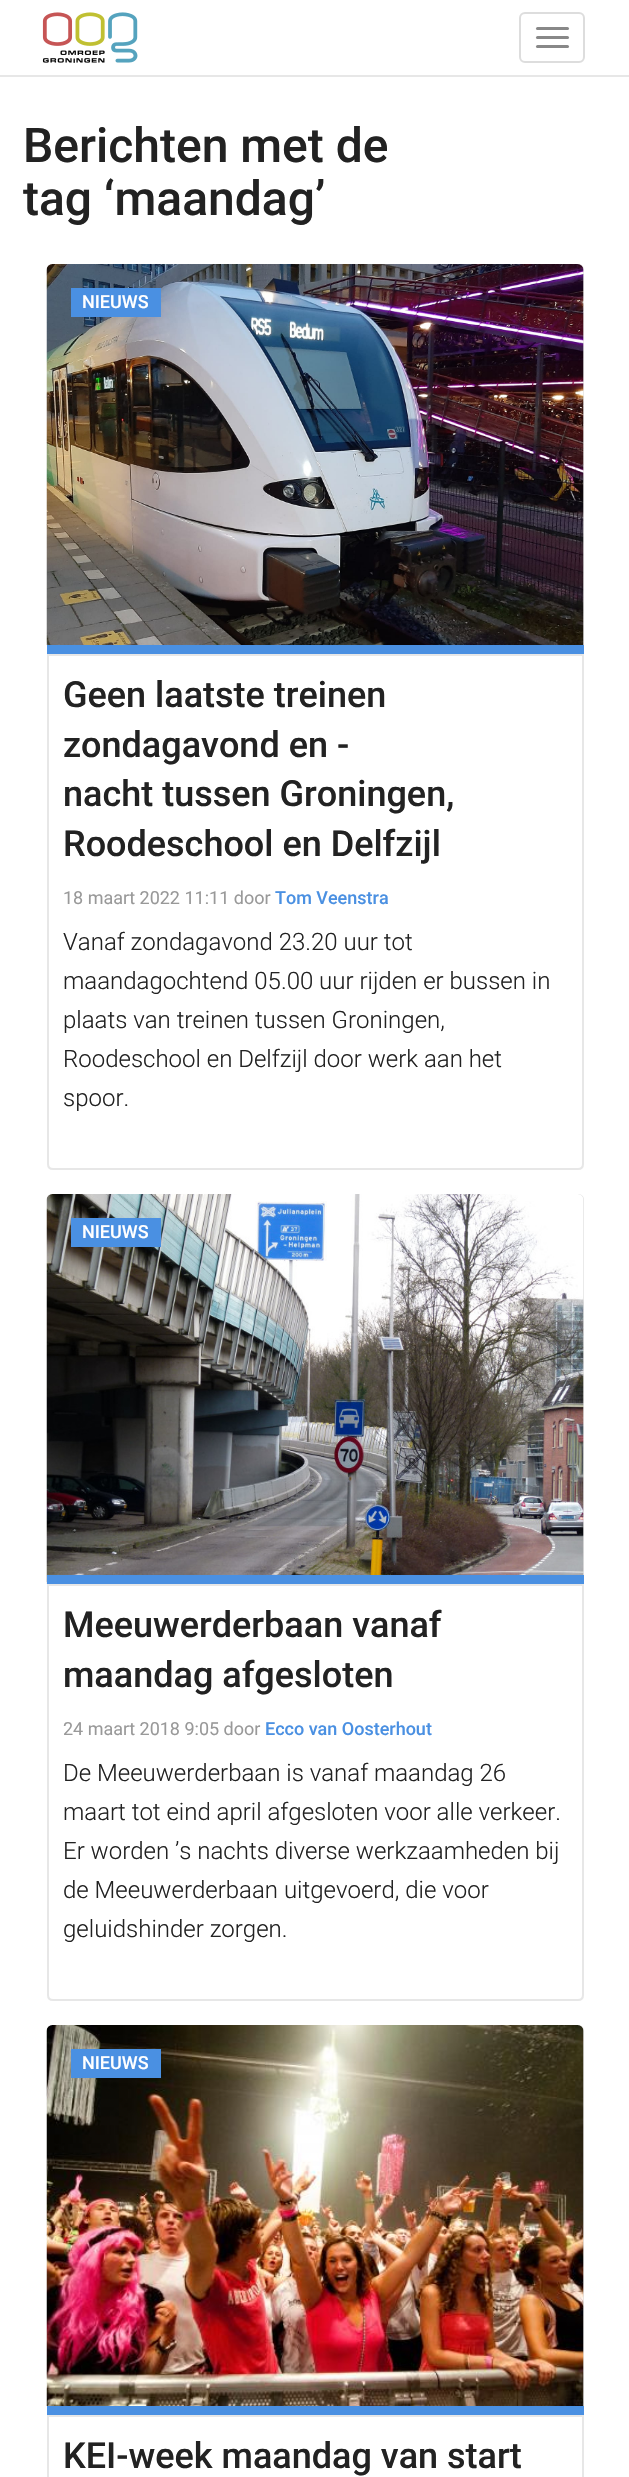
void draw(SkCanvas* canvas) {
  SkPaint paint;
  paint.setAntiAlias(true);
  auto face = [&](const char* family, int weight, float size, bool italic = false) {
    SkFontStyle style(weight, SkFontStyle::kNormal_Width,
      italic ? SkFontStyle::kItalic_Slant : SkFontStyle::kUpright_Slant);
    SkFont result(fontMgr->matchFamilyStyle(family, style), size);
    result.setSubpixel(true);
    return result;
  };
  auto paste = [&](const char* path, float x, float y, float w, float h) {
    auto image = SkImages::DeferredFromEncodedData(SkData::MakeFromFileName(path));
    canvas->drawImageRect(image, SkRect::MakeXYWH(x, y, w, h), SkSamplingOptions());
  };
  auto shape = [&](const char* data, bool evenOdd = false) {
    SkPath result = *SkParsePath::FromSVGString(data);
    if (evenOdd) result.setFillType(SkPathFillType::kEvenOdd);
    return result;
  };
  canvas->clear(0xffffffff);
  paint.setColor(0xffe7e7e7);
  canvas->drawRect(SkRect::MakeXYWH(0, 75, 629, 2), paint);
  paste("img/1.png", 42, 12, 96, 51);
  paint.setStroke(true);
  paint.setStrokeWidth(2);
  paint.setColor(0xffdddddd);
  canvas->drawRoundRect(SkRect::MakeXYWH(520, 13, 64, 49), 5, 5, paint);
  paint.setStroke(false);
  paint.setColor(0xff888888);
  canvas->drawRoundRect(SkRect::MakeXYWH(536, 27, 33, 3), 1.5f, 1.5f, paint);
  canvas->drawRoundRect(SkRect::MakeXYWH(536, 36, 33, 3), 1.5f, 1.5f, paint);
  canvas->drawRoundRect(SkRect::MakeXYWH(536, 45, 33, 3), 1.5f, 1.5f, paint);
  paint.setColor(0xffe3e3e3);
  canvas->drawPath(shape("M53 264H578C581.5 264 584 266.5 584 270V654H47V270C47 266.5 49.5 264 53 264Z"), paint);
  paste("img/2.png", 46, 264, 538, 381);
  paint.setColor(0xff4a90e2);
  canvas->drawRect(SkRect::MakeXYWH(47, 645, 537, 9), paint);
  canvas->drawRect(SkRect::MakeXYWH(71, 288, 90, 29), paint);
  paint.setStroke(true);
  paint.setColor(0xffe7e7e7);
  canvas->drawPath(shape("M48 655H583V1164C583 1167 581 1169 578 1169H53C50 1169 48 1167 48 1164Z"), paint);
  paint.setStroke(false);
  paint.setColor(0xffe3e3e3);
  canvas->drawPath(shape("M53 1194H578C581.5 1194 584 1196.5 584 1200V1584H47V1200C47 1196.5 49.5 1194 53 1194Z"), paint);
  paste("img/3.png", 46, 1194, 538, 390);
  paint.setColor(0xff4a90e2);
  canvas->drawRect(SkRect::MakeXYWH(47, 1575, 537, 9), paint);
  canvas->drawRect(SkRect::MakeXYWH(71, 1218, 90, 29), paint);
  paint.setStroke(true);
  paint.setColor(0xffe7e7e7);
  canvas->drawPath(shape("M48 1585H583V1995C583 1998 581 2000 578 2000H53C50 2000 48 1998 48 1995Z"), paint);
  paint.setStroke(false);
  paint.setColor(0xffe3e3e3);
  canvas->drawPath(shape("M53 2025H578C581.5 2025 584 2027.5 584 2031V2415H47V2031C47 2027.5 49.5 2025 53 2025Z"), paint);
  paste("img/4.png", 46, 2025, 538, 381);
  paint.setColor(0xff4a90e2);
  canvas->drawRect(SkRect::MakeXYWH(47, 2406, 537, 9), paint);
  canvas->drawRect(SkRect::MakeXYWH(71, 2049, 90, 29), paint);
  paint.setStroke(true);
  paint.setColor(0xffe7e7e7);
  canvas->drawRect(SkRect::MakeXYWH(48, 2416, 535, 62), paint);
  auto f0 = face("Roboto", 500, 48);
  paint.setStroke(false);
  paint.setColor(0xff222222);
  canvas->drawString("Berichten met de", 23, 162, f0, paint);
  canvas->drawString("tag ‘maandag’", 23, 215, f0, paint);
  auto f1 = face("Roboto", 500, 18);
  paint.setColor(0xffffffff);
  canvas->drawString("NIEUWS", 82, 308, f1, paint);
  auto f2 = face("Roboto", 500, 36);
  paint.setColor(0xff222222);
  {
    const struct { const char* s; float x, y; } items[] = {
      {"Geen laatste treinen", 63, 707},
      {"zondagavond en -", 63, 757},
      {"nacht tussen Groningen,", 63, 806},
      {"Roodeschool en Delfzijl", 63, 856},
    };
    for (auto [s, x, y] : items) {
      canvas->drawString(s, x, y, f2, paint);
    }
  }
  auto f3 = face("Roboto", 400, 18);
  paint.setColor(0xff999999);
  canvas->drawString("18 maart 2022 11:11 door", 63, 904, f3, paint);
  paint.setColor(0xff4a90e2);
  canvas->drawString("Tom Veenstra", 275, 904, f1, paint);
  auto f4 = face("Roboto", 300, 24);
  paint.setColor(0xff222222);
  {
    const struct { const char* s; float x, y; } items[] = {
      {"Vanaf zondagavond 23.20 uur tot", 63, 950},
      {"maandagochtend 05.00 uur rijden er bussen in", 63, 989},
      {"plaats van treinen tussen Groningen,", 63, 1028},
      {"Roodeschool en Delfzijl door werk aan het", 63, 1067},
      {"spoor.", 63, 1106},
    };
    for (auto [s, x, y] : items) {
      canvas->drawString(s, x, y, f4, paint);
    }
  }
  paint.setColor(0xffffffff);
  canvas->drawString("NIEUWS", 82, 1238, f1, paint);
  paint.setColor(0xff222222);
  canvas->drawString("Meeuwerderbaan vanaf", 63, 1637, f2, paint);
  canvas->drawString("maandag afgesloten", 63, 1687, f2, paint);
  paint.setColor(0xff999999);
  canvas->drawString("24 maart 2018 9:05 door", 63, 1735, f3, paint);
  paint.setColor(0xff4a90e2);
  canvas->drawString("Ecco van Oosterhout", 265, 1735, f1, paint);
  paint.setColor(0xff222222);
  {
    const struct { const char* s; float x, y; } items[] = {
      {"De Meeuwerderbaan is vanaf maandag 26", 63, 1781},
      {"maart tot eind april afgesloten voor alle verkeer.", 63, 1820},
      {"Er worden ’s nachts diverse werkzaamheden bij", 63, 1859},
      {"de Meeuwerderbaan uitgevoerd, die voor", 63, 1898},
      {"geluidshinder zorgen.", 63, 1937},
    };
    for (auto [s, x, y] : items) {
      canvas->drawString(s, x, y, f4, paint);
    }
  }
  paint.setColor(0xffffffff);
  canvas->drawString("NIEUWS", 82, 2069, f1, paint);
  paint.setColor(0xff222222);
  canvas->drawString("KEI-week maandag van start", 63, 2468, f2, paint);
}
